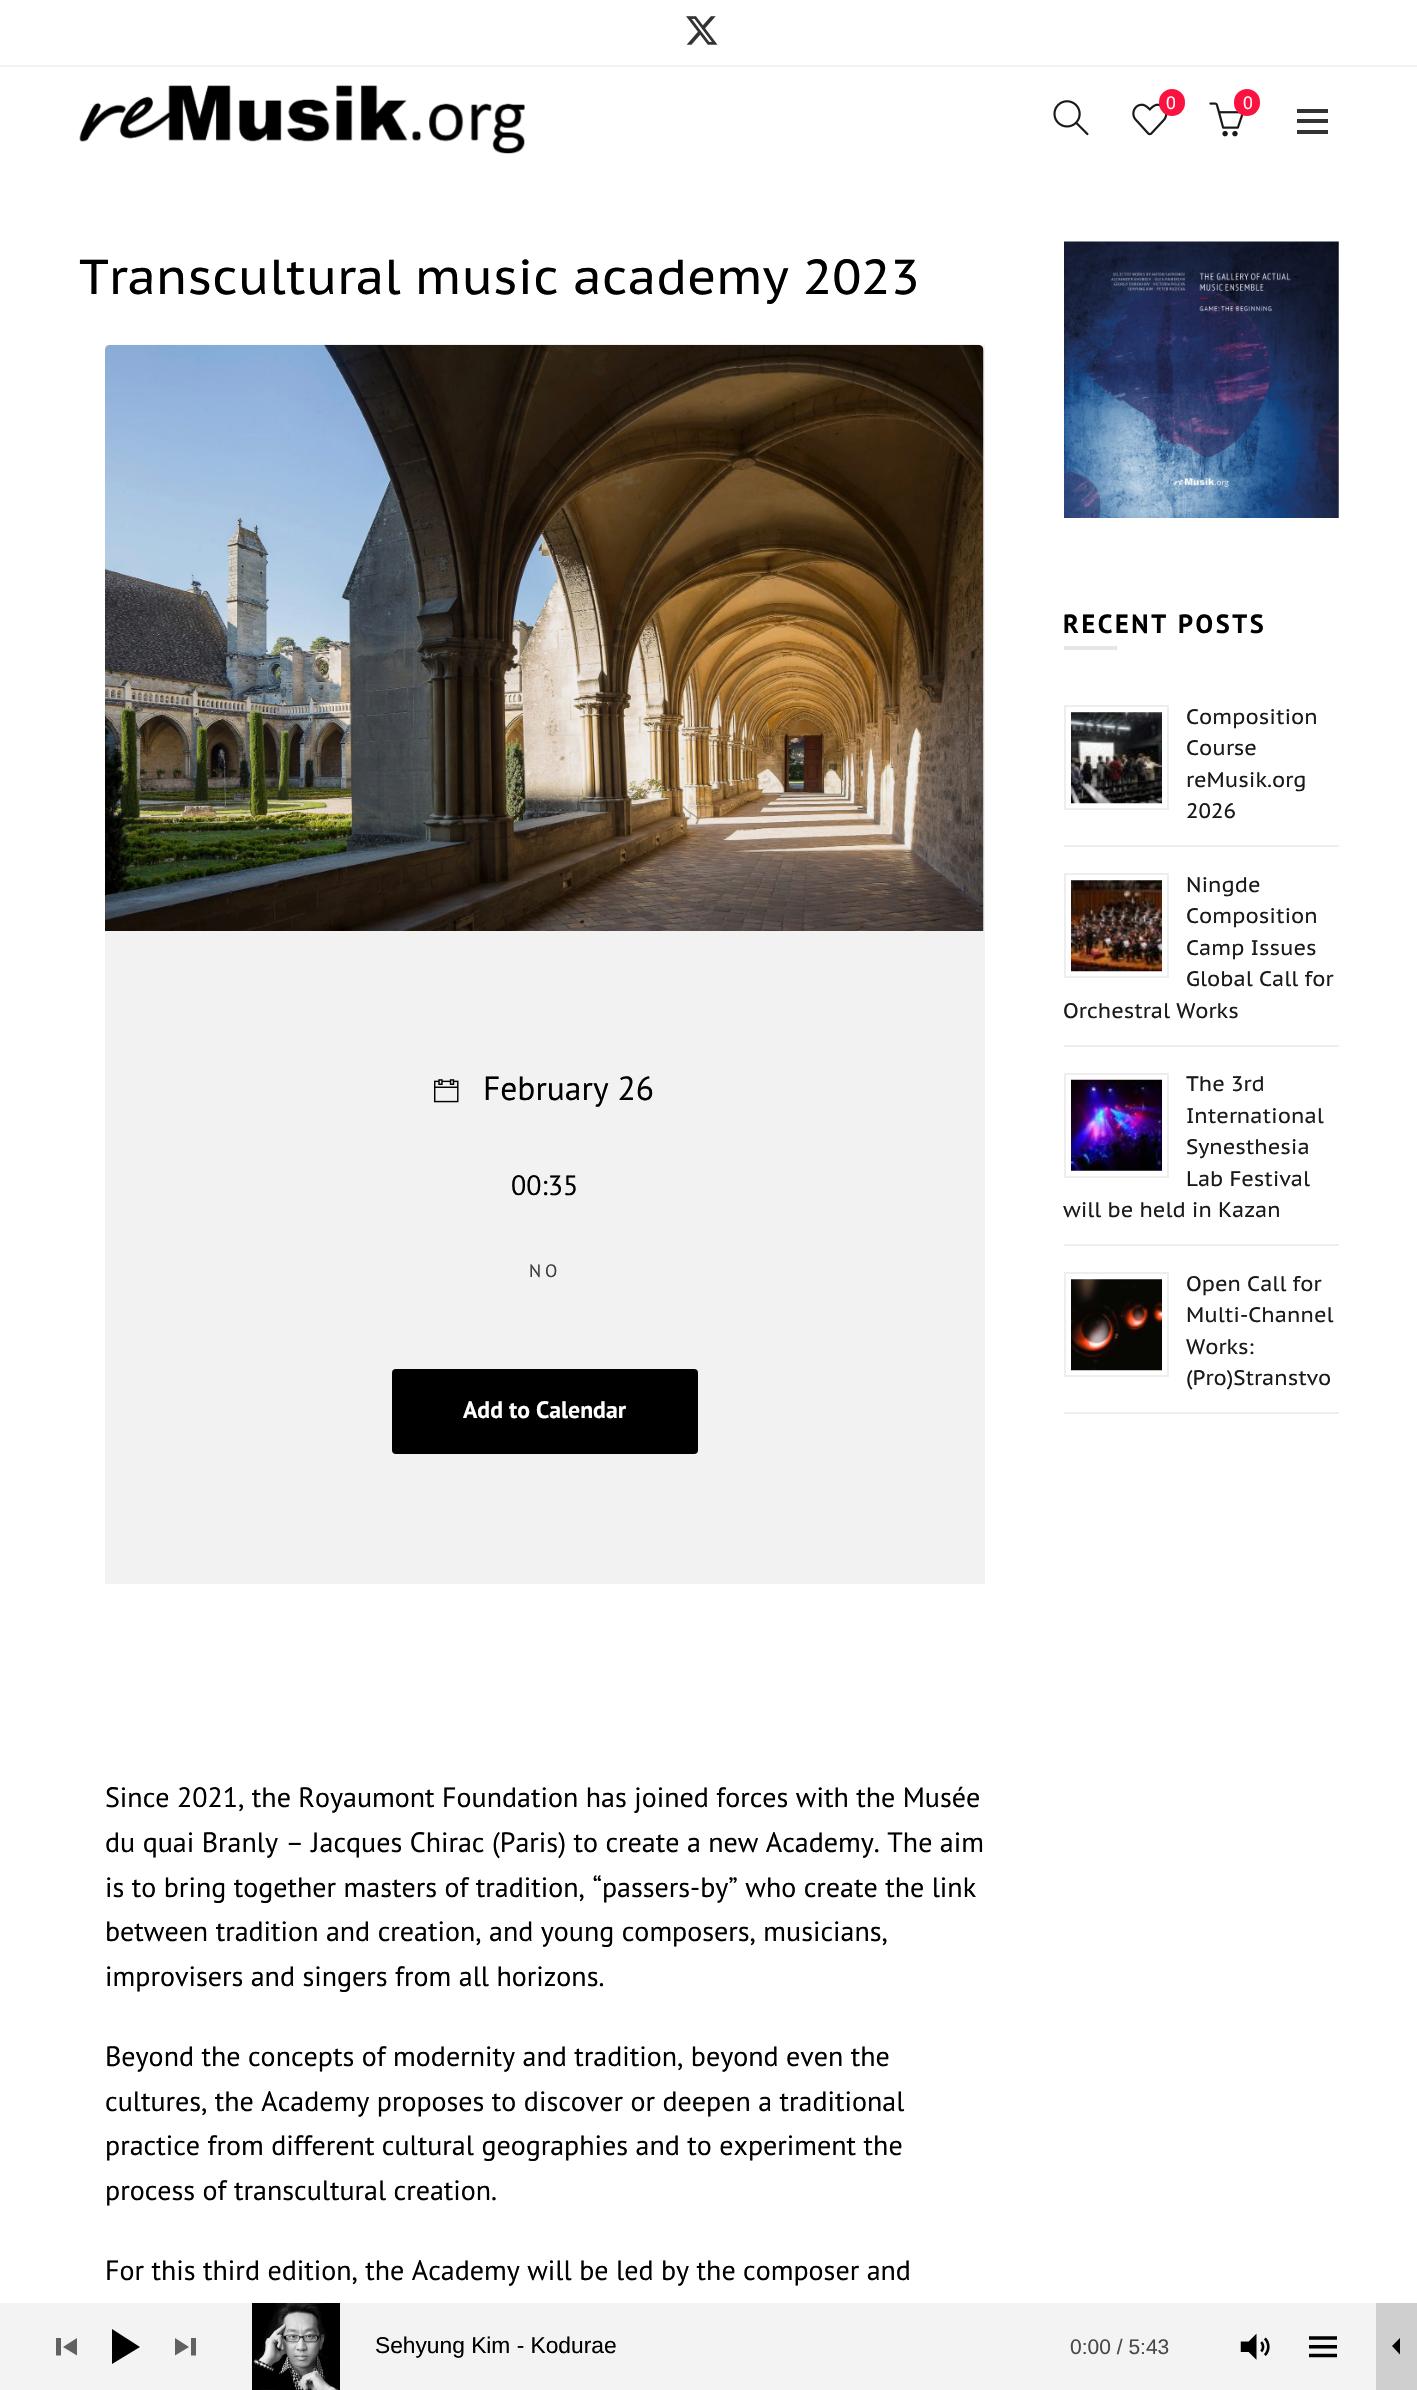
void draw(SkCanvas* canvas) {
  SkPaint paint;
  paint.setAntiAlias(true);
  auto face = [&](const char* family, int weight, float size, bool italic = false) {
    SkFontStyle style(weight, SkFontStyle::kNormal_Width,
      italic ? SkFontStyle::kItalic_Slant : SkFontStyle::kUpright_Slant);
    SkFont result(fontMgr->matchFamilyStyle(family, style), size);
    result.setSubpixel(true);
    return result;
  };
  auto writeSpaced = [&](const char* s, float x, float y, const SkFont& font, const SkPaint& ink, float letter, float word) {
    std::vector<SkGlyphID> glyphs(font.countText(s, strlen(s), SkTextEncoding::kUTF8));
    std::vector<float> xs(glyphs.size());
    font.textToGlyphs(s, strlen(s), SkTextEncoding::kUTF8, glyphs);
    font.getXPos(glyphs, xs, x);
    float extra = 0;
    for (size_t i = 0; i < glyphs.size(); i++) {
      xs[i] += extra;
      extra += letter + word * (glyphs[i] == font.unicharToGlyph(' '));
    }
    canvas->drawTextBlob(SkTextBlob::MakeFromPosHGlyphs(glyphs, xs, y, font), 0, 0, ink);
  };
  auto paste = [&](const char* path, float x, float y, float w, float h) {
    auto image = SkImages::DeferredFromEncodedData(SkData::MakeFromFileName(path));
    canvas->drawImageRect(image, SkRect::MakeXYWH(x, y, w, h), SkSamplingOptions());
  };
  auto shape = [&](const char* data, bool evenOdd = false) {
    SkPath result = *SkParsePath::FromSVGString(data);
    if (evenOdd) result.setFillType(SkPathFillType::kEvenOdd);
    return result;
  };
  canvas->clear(0xffffffff);
  paint.setColor(0xfff2f2f2);
  canvas->drawRect(SkRect::MakeXYWH(0, 65, 1417, 2), paint);
  paste("img/1.png", 686, 16, 32, 29);
  paste("img/2.png", 79, 85, 446, 69);
  paste("img/3.png", 1053, 100, 36, 36);
  paste("img/4.png", 1132, 103, 36, 33);
  paint.setColor(0xfffa1240);
  canvas->drawRoundRect(SkRect::MakeXYWH(1159, 89, 26, 27), 13, 13, paint);
  paste("img/5.png", 1209, 102, 35, 35);
  canvas->drawRoundRect(SkRect::MakeXYWH(1234, 89, 26, 27), 13, 13, paint);
  {
    const struct { float x, y, w, h; SkColor color; } items[] = {
      {1297, 119, 31, 4, 0xff333333},
      {1297, 109, 31, 4, 0xff333333},
      {1297, 130, 31, 4, 0xff333333},
    };
    for (auto [x, y, w, h, color] : items) {
      paint.setColor(color);
      canvas->drawRect(SkRect::MakeXYWH(x, y, w, h), paint);
    }
  }
  paste("img/6.png", 105, 344, 879, 587);
  paste("img/7.png", 434, 1079, 25, 24);
  paint.setColor(0x0d000000);
  canvas->drawRect(SkRect::MakeXYWH(105, 345, 880, 1239), paint);
  paint.setColor(0xff000000);
  canvas->drawRoundRect(SkRect::MakeXYWH(392, 1369, 306, 85), 4, 4, paint);
  paste("img/8.png", 1064, 241, 275, 277);
  paint.setColor(0xffe6e6e6);
  canvas->drawRect(SkRect::MakeXYWH(1064, 646, 53, 4), paint);
  paint.setColor(0xffeeeeee);
  canvas->drawRect(SkRect::MakeXYWH(1064, 845, 275, 2), paint);
  paint.setStroke(true);
  paint.setStrokeWidth(2);
  canvas->drawRect(SkRect::MakeXYWH(1065, 706, 103, 103), paint);
  paste("img/9.png", 1071, 712, 91, 92);
  paint.setStroke(false);
  canvas->drawRect(SkRect::MakeXYWH(1064, 1045, 275, 2), paint);
  paint.setStroke(true);
  canvas->drawRect(SkRect::MakeXYWH(1065, 874, 103, 103), paint);
  paste("img/10.png", 1071, 880, 91, 92);
  paint.setStroke(false);
  canvas->drawRect(SkRect::MakeXYWH(1064, 1244, 275, 2), paint);
  paint.setStroke(true);
  canvas->drawRect(SkRect::MakeXYWH(1065, 1074, 103, 103), paint);
  paste("img/11.png", 1071, 1079, 91, 92);
  paint.setStroke(false);
  canvas->drawRect(SkRect::MakeXYWH(1064, 1412, 275, 2), paint);
  paint.setStroke(true);
  canvas->drawRect(SkRect::MakeXYWH(1065, 1273, 103, 103), paint);
  paste("img/12.png", 1071, 1279, 91, 92);
  paint.setStroke(false);
  paint.setColor(0xfff3f3f3);
  canvas->drawRect(SkRect::MakeXYWH(0, 2303, 1376, 87), paint);
  paste("img/13.png", 252, 2303, 88, 87);
  paint.setColor(0xff616161);
  canvas->drawPath(shape("M61 2338V2355.5H56V2338ZM77 2338V2355.5L63 2347Z"), paint);
  paint.setColor(0xff000000);
  canvas->drawPath(shape("M140 2347L112 2364V2329Z"), paint);
  paint.setColor(0xff616161);
  canvas->drawPath(shape("M189 2347L175 2355.5V2338ZM196 2338V2355.5H191V2338Z"), paint);
  paste("img/14.png", 1240, 2333, 30, 27);
  paste("img/15.png", 1309, 2336, 28, 22);
  paint.setColor(0xffcfcfcf);
  canvas->drawRect(SkRect::MakeXYWH(1376, 2303, 41, 87), paint);
  paint.setColor(0xff000000);
  canvas->drawPath(shape("M1400 2354.5L1392 2346L1400 2338Z"), paint);
  auto f0 = face("PT Sans", 400, 18);
  paint.setColor(0xffffffff);
  canvas->drawString("0", 1166, 109, f0, paint);
  canvas->drawString("0", 1243, 109, f0, paint);
  auto f1 = face("PT Sans Caption", 400, 49);
  paint.setColor(0xff000000);
  canvas->drawString("Transcultural music academy 2023", 79, 294, f1, paint);
  auto f2 = face("PT Sans", 400, 33.5f);
  canvas->drawString("February 26", 483, 1100, f2, paint);
  auto f3 = face("PT Sans", 400, 28);
  canvas->drawString("00:35", 511, 1195, f3, paint);
  paint.setColor(0xff3d3d3d);
  writeSpaced("NO", 529, 1277, f0, paint, 4, 0);
  auto f4 = face("PT Sans", 700, 23.75f);
  paint.setColor(0xffffffff);
  canvas->drawString("Add to Calendar", 463, 1418, f4, paint);
  paint.setColor(0xff000000);
  {
    const struct { const char* s; float x, y; } items[] = {
      {"Since 2021, the Royaumont Foundation has joined forces with the Musée", 105, 1807},
      {"du quai Branly – Jacques Chirac (Paris) to create a new Academy. The aim", 105, 1852},
      {"is to bring together masters of tradition, “passers-by” who create the link", 105, 1897},
      {"between tradition and creation, and young composers, musicians,", 105, 1941},
      {"improvisers and singers from all horizons.", 105, 1986},
      {"Beyond the concepts of modernity and tradition, beyond even the", 105, 2066},
      {"cultures, the Academy proposes to discover or deepen a traditional", 105, 2111},
      {"practice from different cultural geographies and to experiment the", 105, 2155},
      {"process of transcultural creation.", 105, 2200},
      {"For this third edition, the Academy will be led by the composer and", 105, 2280},
    };
    for (auto [s, x, y] : items) {
      canvas->drawString(s, x, y, f3, paint);
    }
  }
  auto f5 = face("PT Sans", 700, 26.25f);
  writeSpaced("RECENT POSTS", 1063, 633, f5, paint, 2.6f, 0);
  auto f6 = face("PT Sans Caption", 400, 21);
  paint.setColor(0xff1a1a1a);
  {
    const struct { const char* s; float x, y; } items[] = {
      {"Composition", 1186, 724},
      {"Course", 1186, 755},
      {"reMusik.org", 1186, 787},
      {"2026", 1186, 818},
      {"Ningde", 1186, 892},
      {"Composition", 1186, 923},
      {"Camp Issues", 1186, 955},
      {"Global Call for", 1186, 986},
      {"Orchestral Works", 1063, 1018},
      {"The 3rd", 1186, 1091},
      {"International", 1186, 1123},
      {"Synesthesia", 1186, 1154},
      {"Lab Festival", 1186, 1186},
      {"will be held in Kazan", 1063, 1217},
      {"Open Call for", 1186, 1291},
      {"Multi-Channel", 1186, 1322},
      {"Works:", 1186, 1354},
      {"(Pro)Stranstvo", 1186, 1385},
    };
    for (auto [s, x, y] : items) {
      canvas->drawString(s, x, y, f6, paint);
    }
  }
  auto f7 = face("Liberation Sans", 400, 22.75f);
  paint.setColor(0xff000000);
  canvas->drawString("Sehyung Kim - Kodurae", 375, 2353, f7, paint);
  auto f8 = face("Liberation Sans", 400, 21);
  paint.setColor(0xff494949);
  canvas->drawString("0:00 / 5:43", 1070, 2354, f8, paint);
}
